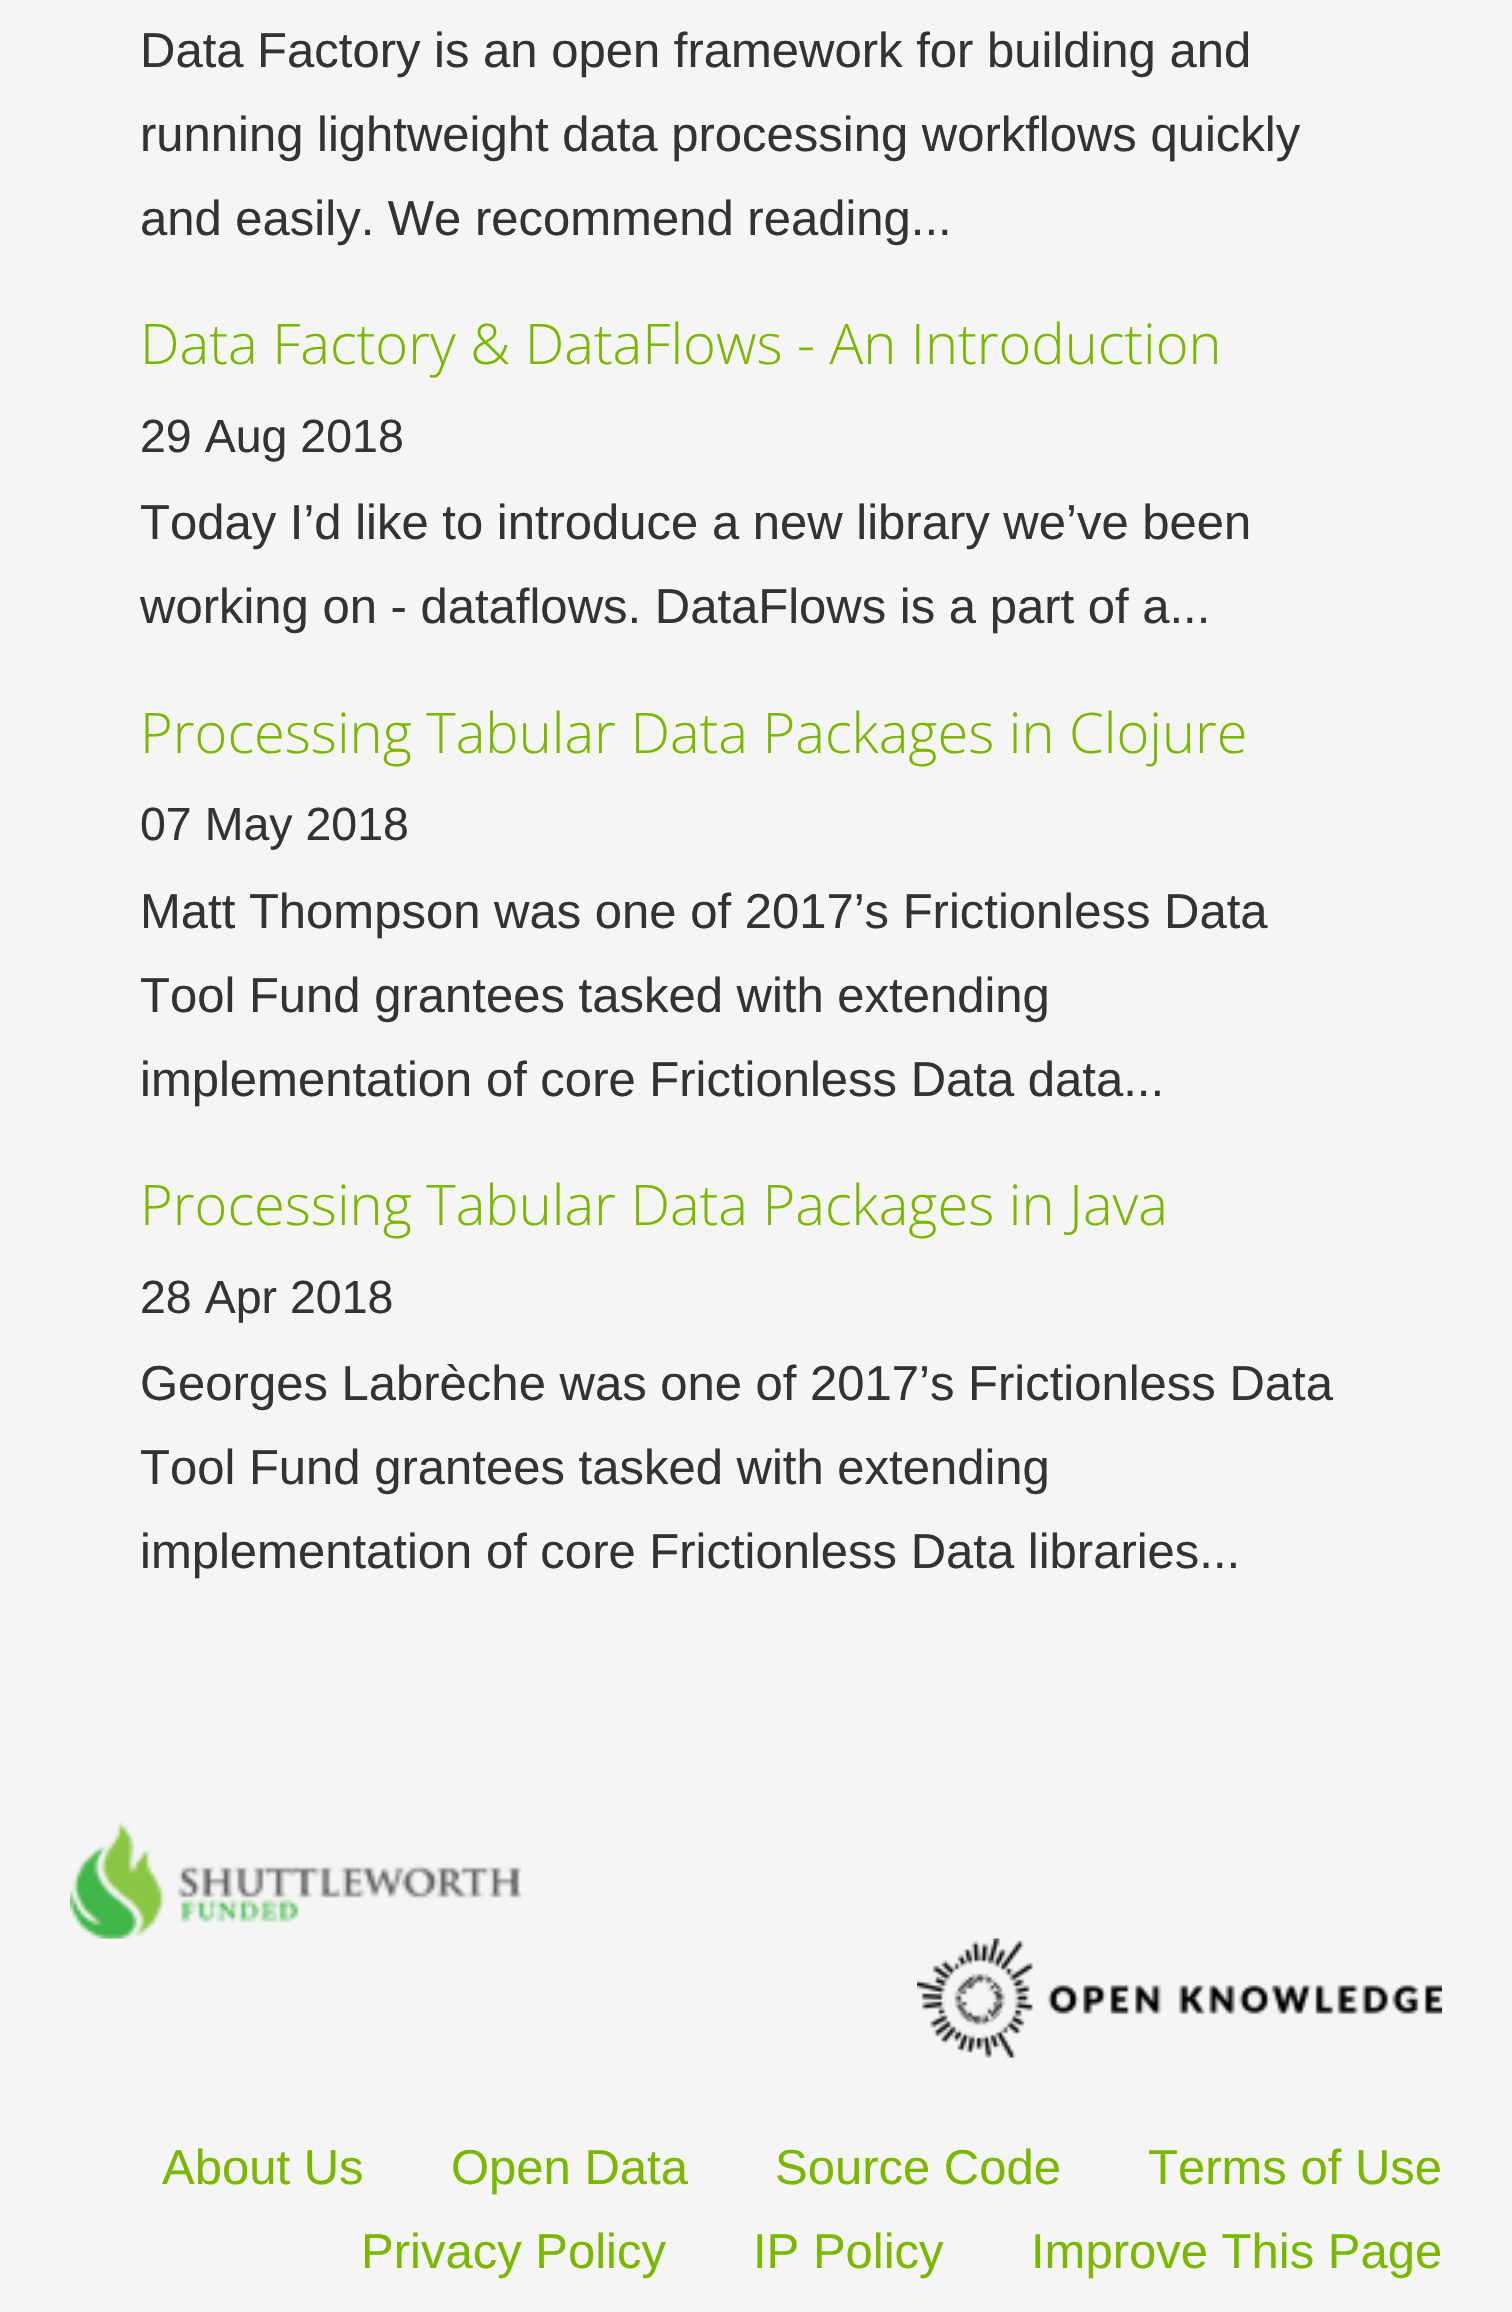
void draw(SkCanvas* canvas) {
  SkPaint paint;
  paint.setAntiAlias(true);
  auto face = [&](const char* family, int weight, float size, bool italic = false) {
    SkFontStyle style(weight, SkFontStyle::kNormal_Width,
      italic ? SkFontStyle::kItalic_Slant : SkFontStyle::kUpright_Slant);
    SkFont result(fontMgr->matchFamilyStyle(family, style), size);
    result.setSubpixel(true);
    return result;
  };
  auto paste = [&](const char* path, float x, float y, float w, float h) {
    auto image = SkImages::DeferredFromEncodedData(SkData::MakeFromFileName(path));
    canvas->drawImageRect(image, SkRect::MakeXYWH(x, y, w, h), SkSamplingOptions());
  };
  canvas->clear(0xfff5f5f5);
  paste("img/1.png", 70, 1823, 452, 116);
  paste("img/2.png", 917, 1938, 525, 120);
  auto f0 = face("Liberation Sans", 400, 49);
  paint.setColor(0xff333333);
  {
    const struct { const char* s; float x, y; } items[] = {
      {"Data Factory is an open framework for building and", 140, 67},
      {"running lightweight data processing workflows quickly", 140, 151},
      {"and easily. We recommend reading...", 140, 235},
    };
    for (auto [s, x, y] : items) {
      canvas->drawString(s, x, y, f0, paint);
    }
  }
  auto f1 = face("Open Sans", 300, 56);
  paint.setColor(0xff7ab800);
  canvas->drawString("Data Factory & DataFlows - An Introduction", 140, 364, f1, paint);
  auto f2 = face("Liberation Sans", 400, 46.5f);
  paint.setColor(0xff333333);
  canvas->drawString("29 Aug 2018", 140, 452, f2, paint);
  canvas->drawString("Today I’d like to introduce a new library we’ve been", 140, 539, f0, paint);
  canvas->drawString("working on - dataflows. DataFlows is a part of a...", 140, 623, f0, paint);
  paint.setColor(0xff7ab800);
  canvas->drawString("Processing Tabular Data Packages in Clojure", 140, 753, f1, paint);
  paint.setColor(0xff333333);
  canvas->drawString("07 May 2018", 140, 840, f2, paint);
  {
    const struct { const char* s; float x, y; } items[] = {
      {"Matt Thompson was one of 2017’s Frictionless Data", 140, 928},
      {"Tool Fund grantees tasked with extending", 140, 1012},
      {"implementation of core Frictionless Data data...", 140, 1096},
    };
    for (auto [s, x, y] : items) {
      canvas->drawString(s, x, y, f0, paint);
    }
  }
  paint.setColor(0xff7ab800);
  canvas->drawString("Processing Tabular Data Packages in Java", 140, 1225, f1, paint);
  paint.setColor(0xff333333);
  canvas->drawString("28 Apr 2018", 140, 1313, f2, paint);
  {
    const struct { const char* s; float x, y; } items[] = {
      {"Georges Labrèche was one of 2017’s Frictionless Data", 140, 1400},
      {"Tool Fund grantees tasked with extending", 140, 1484},
      {"implementation of core Frictionless Data libraries...", 140, 1568},
    };
    for (auto [s, x, y] : items) {
      canvas->drawString(s, x, y, f0, paint);
    }
  }
  paint.setColor(0xff7ab800);
  {
    const struct { const char* s; float x, y; } items[] = {
      {"About Us", 162, 2184},
      {"Open Data", 451, 2184},
      {"Source Code", 775, 2184},
      {"Terms of Use", 1148, 2184},
      {"Privacy Policy", 361, 2268},
      {"IP Policy", 753, 2268},
      {"Improve This Page", 1031, 2268},
    };
    for (auto [s, x, y] : items) {
      canvas->drawString(s, x, y, f0, paint);
    }
  }
}
